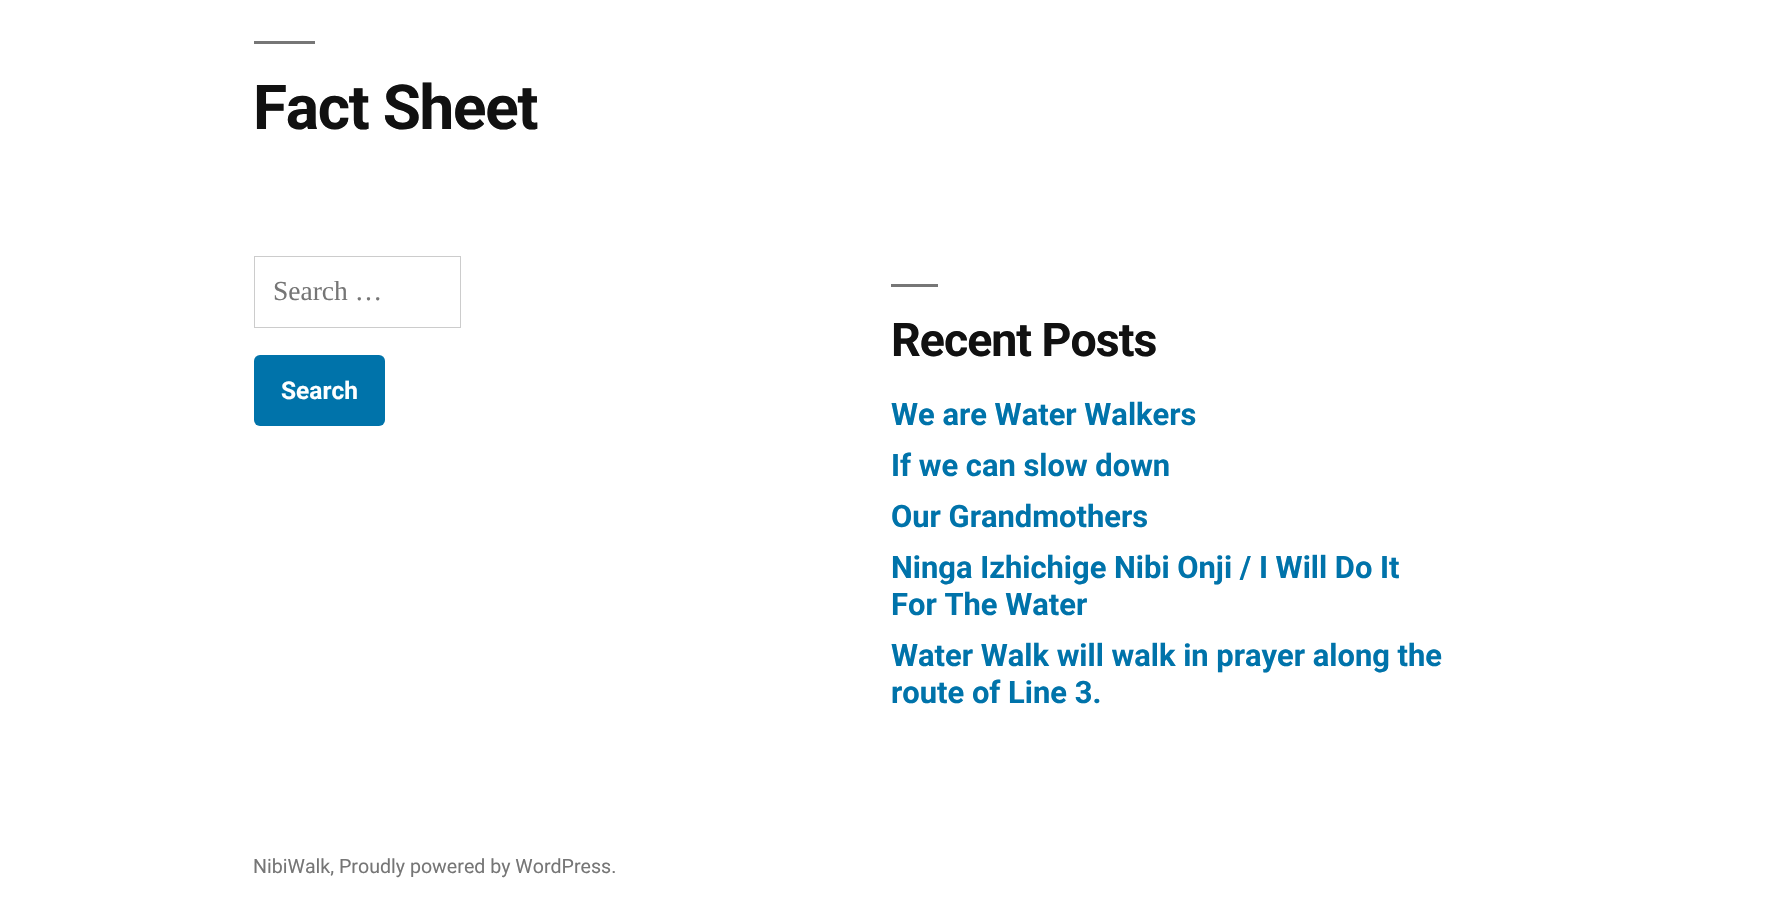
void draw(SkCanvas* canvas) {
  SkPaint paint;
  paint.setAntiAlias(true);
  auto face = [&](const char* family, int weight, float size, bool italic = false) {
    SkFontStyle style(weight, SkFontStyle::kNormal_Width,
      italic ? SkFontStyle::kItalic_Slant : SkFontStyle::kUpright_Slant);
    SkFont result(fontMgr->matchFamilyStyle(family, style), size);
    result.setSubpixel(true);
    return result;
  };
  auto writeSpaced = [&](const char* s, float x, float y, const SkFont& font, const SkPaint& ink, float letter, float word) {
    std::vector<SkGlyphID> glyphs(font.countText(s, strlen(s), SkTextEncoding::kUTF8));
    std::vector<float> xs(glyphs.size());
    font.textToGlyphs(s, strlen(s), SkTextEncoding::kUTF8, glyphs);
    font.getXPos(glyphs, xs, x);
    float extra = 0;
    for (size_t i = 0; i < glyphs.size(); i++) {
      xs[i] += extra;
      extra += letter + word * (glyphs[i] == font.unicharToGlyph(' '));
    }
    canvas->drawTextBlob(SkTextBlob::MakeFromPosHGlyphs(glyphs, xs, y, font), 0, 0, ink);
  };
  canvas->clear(0xffffffff);
  paint.setColor(0xff767676);
  canvas->drawRect(SkRect::MakeXYWH(254, 41, 61, 3), paint);
  paint.setStroke(true);
  paint.setStrokeWidth(1);
  paint.setColor(0xffcccccc);
  canvas->drawRect(SkRect::MakeXYWH(254.5f, 256.5f, 206, 71), paint);
  paint.setStroke(false);
  paint.setColor(0xff0073aa);
  canvas->drawRoundRect(SkRect::MakeXYWH(254, 355, 131, 71), 6, 6, paint);
  paint.setColor(0xff767676);
  canvas->drawRect(SkRect::MakeXYWH(891, 284, 47, 3), paint);
  auto f0 = face("Roboto", 700, 62);
  paint.setColor(0xff111111);
  writeSpaced("Fact Sheet", 253, 129, f0, paint, -1.25f, 0);
  auto f1 = face("Liberation Serif", 400, 27.5f);
  paint.setColor(0xff767676);
  canvas->drawString("Search …", 273, 300, f1, paint);
  auto f2 = face("Roboto", 700, 24.5f);
  paint.setColor(0xffffffff);
  canvas->drawString("Search", 281, 399, f2, paint);
  auto f3 = face("Roboto", 700, 46.5f);
  paint.setColor(0xff111111);
  writeSpaced("Recent Posts", 891, 356, f3, paint, -1, 0);
  auto f4 = face("Roboto", 700, 30.9f);
  paint.setColor(0xff0073aa);
  {
    const struct { const char* s; float x, y; } items[] = {
      {"We are Water Walkers", 891, 425},
      {"If we can slow down", 891, 476},
      {"Our Grandmothers", 891, 527},
      {"Ninga Izhichige Nibi Onji / I Will Do It", 891, 578},
      {"For The Water", 891, 615},
      {"Water Walk will walk in prayer along the", 891, 666},
      {"route of Line 3.", 891, 703},
    };
    for (auto [s, x, y] : items) {
      canvas->drawString(s, x, y, f4, paint);
    }
  }
  auto f5 = face("Roboto", 400, 19.6f);
  paint.setColor(0xff767676);
  canvas->drawString("NibiWalk, Proudly powered by WordPress.", 253, 873, f5, paint);
}
